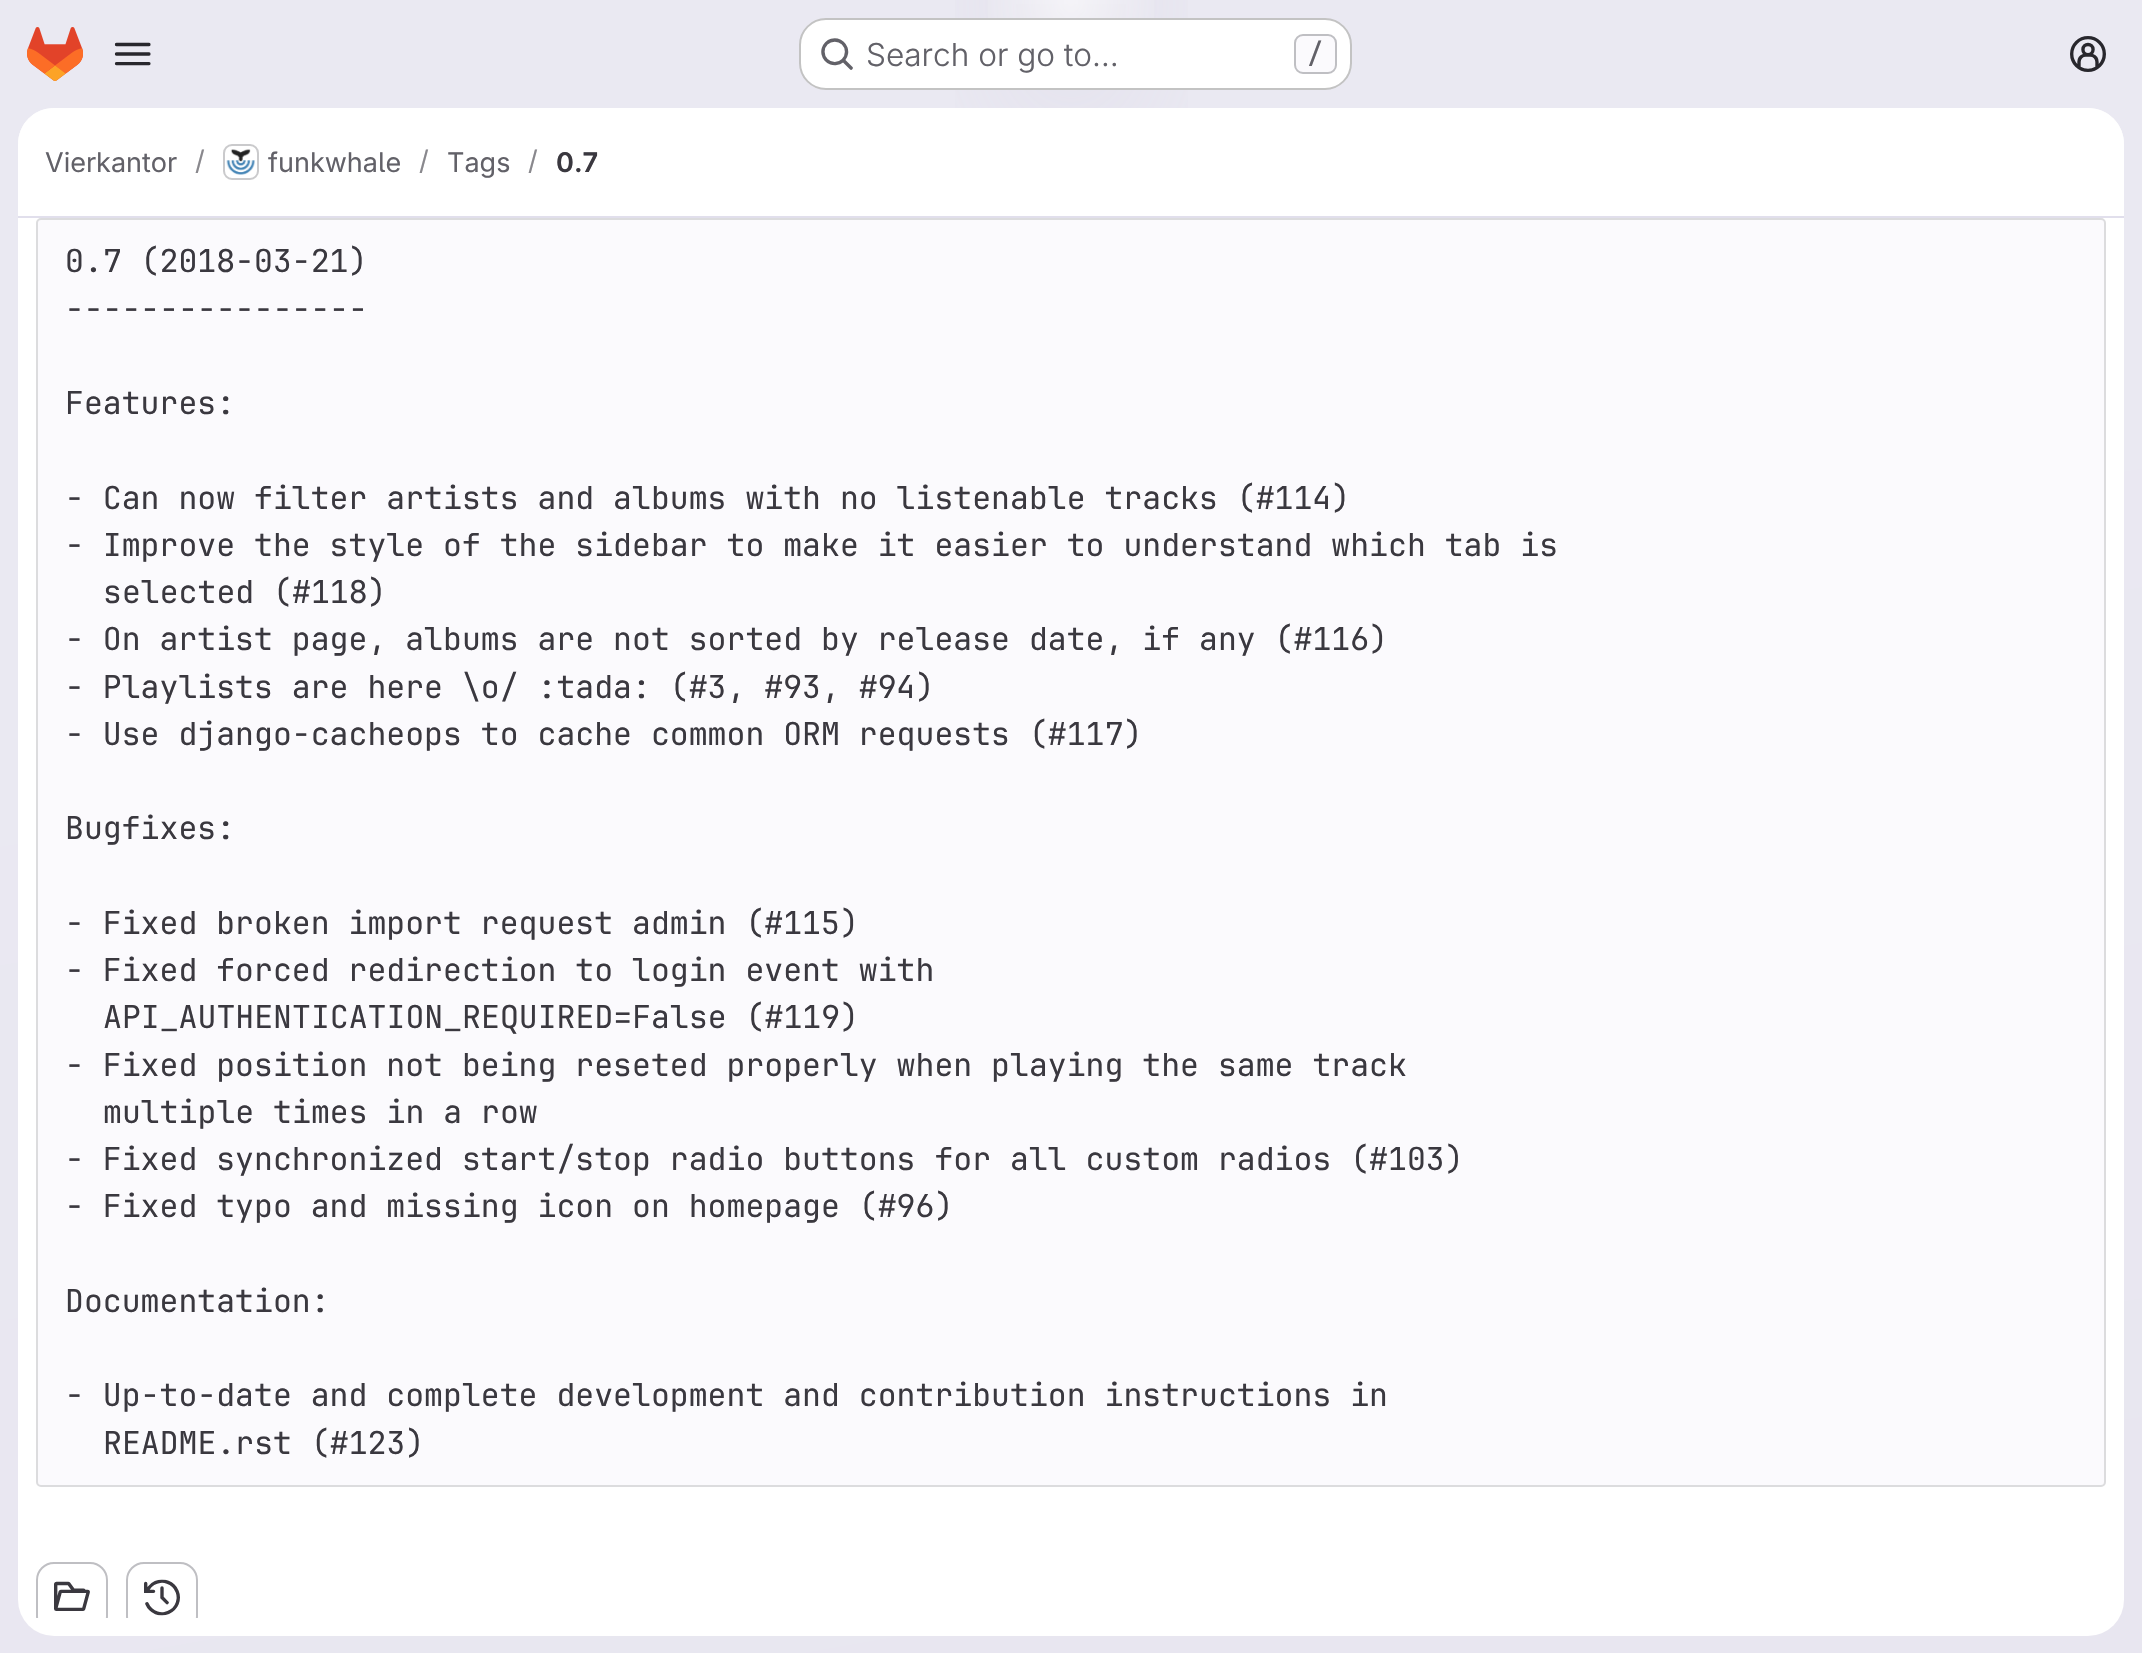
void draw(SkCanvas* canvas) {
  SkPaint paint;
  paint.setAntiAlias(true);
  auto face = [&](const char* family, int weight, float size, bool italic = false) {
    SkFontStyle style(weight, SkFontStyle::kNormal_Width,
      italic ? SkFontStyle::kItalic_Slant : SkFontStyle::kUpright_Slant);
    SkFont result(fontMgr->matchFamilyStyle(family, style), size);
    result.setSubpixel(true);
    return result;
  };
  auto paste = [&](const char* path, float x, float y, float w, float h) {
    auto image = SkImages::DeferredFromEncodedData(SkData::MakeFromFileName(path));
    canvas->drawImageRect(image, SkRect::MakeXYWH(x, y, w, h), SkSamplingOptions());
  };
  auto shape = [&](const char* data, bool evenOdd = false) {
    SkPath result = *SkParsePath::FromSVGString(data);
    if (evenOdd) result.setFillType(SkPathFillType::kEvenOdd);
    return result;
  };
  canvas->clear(0xffffffff);
  {
    const SkColor colors[] = {0xffe8e6f0, 0xffeae9f2};
    const float stops[] = {0, 0.7f};
    const SkPoint ends[] = {{1245, 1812}, {897, -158}};
    paint.setShader(SkGradientShader::MakeLinear(ends, colors, stops, 2, SkTileMode::kClamp));
    paint.setAlpha(255);
  }
  canvas->drawRect(SkRect::MakeXYWH(0, 0, 2142, 1653), paint);
  {
    const SkColor colors[] = {0xffe4e2ed, 0x00e4e2ed};
    const float stops[] = {0, 0.15f};
    SkMatrix m = SkMatrix::Translate(1071, 0).preScale(1071, 1654);
    paint.setShader(SkGradientShader::MakeRadial({0, 0}, 1, colors, stops, 2, SkTileMode::kClamp, 0, &m));
    paint.setAlpha(255);
  }
  canvas->drawRect(SkRect::MakeXYWH(955, 0, 233, 108), paint);
  {
    const SkColor colors[] = {0xffe4e2ec, 0x00e4e2ec};
    const float stops[] = {0, 0.11f};
    SkMatrix m = SkMatrix::Translate(1071, 0).preScale(1071, 1654);
    paint.setShader(SkGradientShader::MakeRadial({0, 0}, 1, colors, stops, 2, SkTileMode::kClamp, 0, &m));
    paint.setAlpha(255);
  }
  canvas->drawRect(SkRect::MakeXYWH(1016, 4, 110, 81), paint);
  {
    const SkColor colors[] = {0x99ffffff, 0x00ffffff};
    const float stops[] = {0, 0.05f};
    paint.setShader(SkGradientShader::MakeRadial({1071, 0}, 1970, colors, stops, 2, SkTileMode::kClamp));
    paint.setAlpha(255);
  }
  canvas->drawRect(SkRect::MakeXYWH(988, 0, 166, 18), paint);
  paste("img/1.png", 27, 27, 56, 54);
  paste("img/2.png", 114, 42, 37, 24);
  paint.setShader(nullptr);
  paint.setColor(0xffffffff);
  canvas->drawRoundRect(SkRect::MakeXYWH(799, 18, 553, 72), 27, 27, paint);
  paint.setStroke(true);
  paint.setStrokeWidth(2);
  paint.setColor(0x3d050506);
  canvas->drawRoundRect(SkRect::MakeXYWH(800, 19, 551, 70), 26, 26, paint);
  paste("img/3.png", 821, 38, 32, 32);
  paint.setStroke(false);
  paint.setColor(0xfffbfafd);
  canvas->drawRoundRect(SkRect::MakeXYWH(1295, 35, 41, 38), 8, 8, paint);
  paint.setStroke(true);
  paint.setColor(0xffbfbfc3);
  canvas->drawRoundRect(SkRect::MakeXYWH(1295, 35, 41, 38), 8, 8, paint);
  paste("img/4.png", 2070, 36, 36, 36);
  paint.setStroke(false);
  paint.setColor(0xffffffff);
  canvas->drawRoundRect(SkRect::MakeXYWH(18, 108, 2106, 1528), 36, 36, paint);
  canvas->drawPath(shape("M54 108H2088C2108 108 2124 124 2124 144V218H18V144C18 124 34 108 54 108Z"), paint);
  paint.setColor(0xffe1dfec);
  canvas->drawRect(SkRect::MakeXYWH(18, 216, 2106, 2), paint);
  paint.setStroke(true);
  paint.setColor(0xffdcdcde);
  canvas->drawRoundRect(SkRect::MakeXYWH(224, 145, 34, 34), 8, 8, paint);
  paste("img/5.png", 226, 149, 29, 26);
  paint.setColor(0x14050506);
  canvas->drawRoundRect(SkRect::MakeXYWH(224, 145, 34, 34), 8, 8, paint);
  paint.setStroke(false);
  paint.setColor(0xfffbfafd);
  canvas->drawRoundRect(SkRect::MakeXYWH(37, 219, 2068, 1267), 4, 4, paint);
  paint.setStroke(true);
  paint.setColor(0xffdcdcde);
  canvas->drawRoundRect(SkRect::MakeXYWH(37, 219, 2068, 1267), 4, 4, paint);
  canvas->save();
  canvas->clipRect(SkRect::MakeXYWH(18, 218, 2106, 1400));
  paint.setColor(0xffbfbfc3);
  canvas->drawRoundRect(SkRect::MakeXYWH(37, 1563, 70, 70), 17, 17, paint);
  canvas->restore();
  paste("img/6.png", 54, 1581, 36, 30);
  canvas->save();
  canvas->clipRect(SkRect::MakeXYWH(18, 218, 2106, 1400));
  canvas->drawRoundRect(SkRect::MakeXYWH(127, 1563, 70, 70), 17, 17, paint);
  canvas->restore();
  paste("img/7.png", 144, 1579, 36, 37);
  auto f0 = face("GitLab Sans", 300, 31.5f);
  paint.setStroke(false);
  paint.setColor(0xff626168);
  canvas->drawString("Search or go to…", 866, 66, f0, paint);
  auto f1 = face("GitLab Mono", 500, 27);
  canvas->drawString("/", 1307, 63, f1, paint);
  auto f2 = face("GitLab Sans", 400, 27);
  canvas->drawString("Vierkantor", 45, 172, f2, paint);
  paint.setColor(0xff89888d);
  canvas->drawString("/", 195, 170, f2, paint);
  paint.setColor(0xff626168);
  canvas->drawString("funkwhale", 268, 172, f2, paint);
  paint.setColor(0xff89888d);
  canvas->drawString("/", 419, 170, f2, paint);
  paint.setColor(0xff626168);
  canvas->drawString("Tags", 447, 172, f2, paint);
  paint.setColor(0xff89888d);
  canvas->drawString("/", 528, 170, f2, paint);
  auto f3 = face("GitLab Sans", 600, 27);
  paint.setColor(0xff3a383f);
  canvas->drawString("0.7", 556, 172, f3, paint);
  auto f4 = face("GitLab Mono", 400, 31.5f);
  {
    const struct { const char* s; float x, y; } items[] = {
      {"0.7 (2018-03-21)", 65, 272},
      {"----------------", 65, 320},
      {"Features:", 65, 414},
      {"- Can now filter artists and albums with no listenable tracks (#114)", 65, 509},
      {"- Improve the style of the sidebar to make it easier to understand which tab is", 65, 556},
      {"selected (#118)", 103, 603},
      {"- On artist page, albums are not sorted by release date, if any (#116)", 65, 650},
      {"- Playlists are here \\o/ :tada: (#3, #93, #94)", 65, 698},
      {"- Use django-cacheops to cache common ORM requests (#117)", 65, 745},
      {"Bugfixes:", 65, 839},
      {"- Fixed broken import request admin (#115)", 65, 934},
      {"- Fixed forced redirection to login event with", 65, 981},
      {"API_AUTHENTICATION_REQUIRED=False (#119)", 103, 1028},
      {"- Fixed position not being reseted properly when playing the same track", 65, 1076},
      {"multiple times in a row", 103, 1123},
      {"- Fixed synchronized start/stop radio buttons for all custom radios (#103)", 65, 1170},
      {"- Fixed typo and missing icon on homepage (#96)", 65, 1217},
      {"Documentation:", 65, 1312},
      {"- Up-to-date and complete development and contribution instructions in", 65, 1406},
      {"README.rst (#123)", 103, 1454},
    };
    for (auto [s, x, y] : items) {
      canvas->drawString(s, x, y, f4, paint);
    }
  }
}
